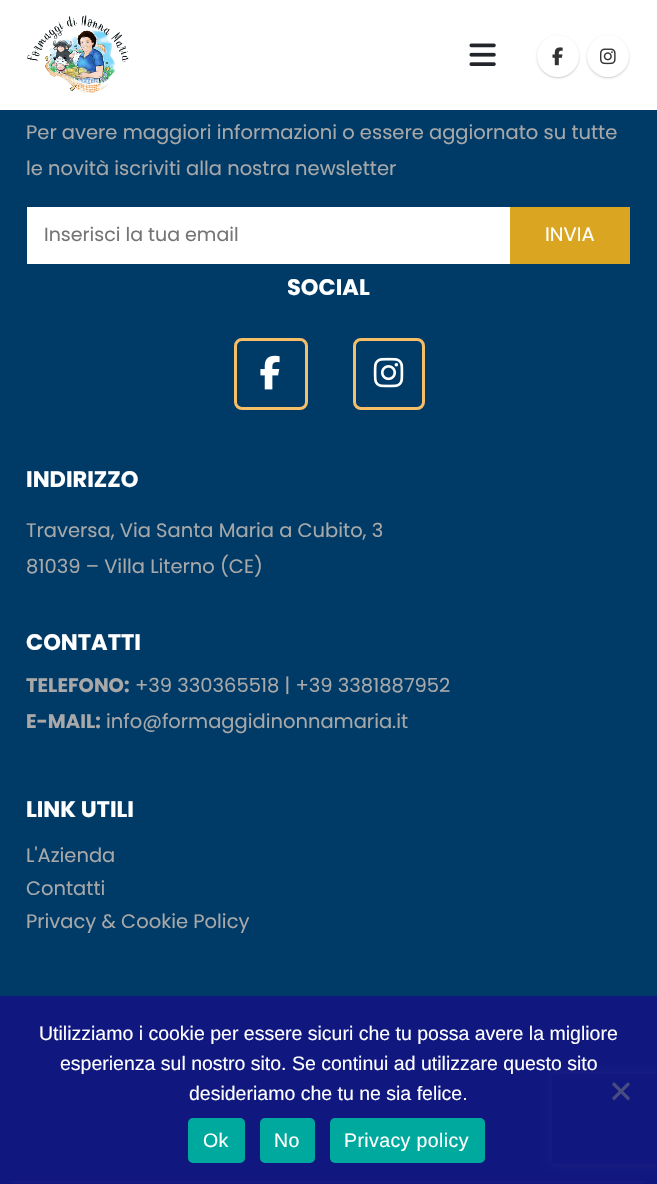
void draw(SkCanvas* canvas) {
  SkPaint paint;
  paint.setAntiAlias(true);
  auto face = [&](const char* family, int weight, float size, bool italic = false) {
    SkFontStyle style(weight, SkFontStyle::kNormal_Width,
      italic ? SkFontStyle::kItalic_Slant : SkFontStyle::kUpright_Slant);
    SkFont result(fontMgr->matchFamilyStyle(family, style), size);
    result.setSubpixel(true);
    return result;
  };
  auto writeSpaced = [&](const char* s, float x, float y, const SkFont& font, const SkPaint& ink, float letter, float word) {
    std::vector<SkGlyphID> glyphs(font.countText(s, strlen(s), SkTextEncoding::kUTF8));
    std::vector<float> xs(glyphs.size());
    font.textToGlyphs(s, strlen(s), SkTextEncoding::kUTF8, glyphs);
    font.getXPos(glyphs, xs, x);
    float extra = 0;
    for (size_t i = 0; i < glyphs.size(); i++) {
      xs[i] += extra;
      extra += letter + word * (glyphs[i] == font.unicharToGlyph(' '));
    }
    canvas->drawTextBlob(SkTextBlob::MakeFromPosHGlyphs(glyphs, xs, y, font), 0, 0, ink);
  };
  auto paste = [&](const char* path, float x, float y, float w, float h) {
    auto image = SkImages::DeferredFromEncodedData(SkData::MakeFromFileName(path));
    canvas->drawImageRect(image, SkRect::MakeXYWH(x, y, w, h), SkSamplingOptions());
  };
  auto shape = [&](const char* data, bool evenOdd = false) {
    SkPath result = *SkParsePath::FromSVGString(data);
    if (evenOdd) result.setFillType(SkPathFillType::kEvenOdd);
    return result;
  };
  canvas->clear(0xff003b68);
  paint.setColor(0xffffffff);
  canvas->drawRect(SkRect::MakeXYWH(0, 0, 657, 110), paint);
  paste("img/1.png", 27, 15, 102, 78);
  paste("img/2.png", 469, 43, 27, 23);
  paint.setColor(0x33000000);
  paint.setMaskFilter(SkMaskFilter::MakeBlur(kNormal_SkBlurStyle, 1));
  canvas->drawRoundRect(SkRect::MakeXYWH(537, 36, 42, 42), 21, 21, paint);
  paint.setMaskFilter(nullptr);
  paint.setColor(0xffffffff);
  canvas->drawCircle(558, 56, 21, paint);
  paste("img/3.png", 552, 47, 11, 19);
  paint.setColor(0x33000000);
  paint.setMaskFilter(SkMaskFilter::MakeBlur(kNormal_SkBlurStyle, 1));
  canvas->drawRoundRect(SkRect::MakeXYWH(587, 36, 42, 42), 21, 21, paint);
  paint.setMaskFilter(nullptr);
  paint.setColor(0xffffffff);
  canvas->drawCircle(608, 56, 21, paint);
  paste("img/4.png", 600, 48, 16, 17);
  canvas->drawRect(SkRect::MakeXYWH(27, 207, 483, 57), paint);
  paint.setColor(0xffdaa520);
  canvas->drawRect(SkRect::MakeXYWH(510, 207, 120, 57), paint);
  paint.setStroke(true);
  paint.setStrokeWidth(3);
  paint.setColor(0xfff7be68);
  canvas->drawRoundRect(SkRect::MakeXYWH(235.5f, 339.5f, 71, 69), 6.5f, 6.5f, paint);
  paste("img/5.png", 260, 355, 20, 35);
  canvas->drawRoundRect(SkRect::MakeXYWH(354.5f, 339.5f, 69, 69), 6.5f, 6.5f, paint);
  paste("img/6.png", 373, 357, 31, 31);
  paint.setStroke(false);
  paint.setColor(0xff395777);
  canvas->drawRect(SkRect::MakeXYWH(12, 1181, 633, 2), paint);
  canvas->save();
  canvas->clipPath(shape("M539 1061H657V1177H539ZM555 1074H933C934.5 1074 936 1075.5 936 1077V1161C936 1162.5 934.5 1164 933 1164H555C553.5 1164 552 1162.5 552 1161V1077C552 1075.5 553.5 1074 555 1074Z", true), true);
  paint.setColor(0xff808080);
  paint.setMaskFilter(SkMaskFilter::MakeBlur(kNormal_SkBlurStyle, 4));
  canvas->drawRoundRect(SkRect::MakeXYWH(552, 1074, 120, 90), 3, 3, paint);
  paint.setMaskFilter(nullptr);
  canvas->restore();
  paint.setColor(0xe6121482);
  canvas->drawRect(SkRect::MakeXYWH(0, 996, 657, 188), paint);
  paint.setColor(0xff484c80);
  canvas->drawPath(shape("M628 1082L630 1084.5L614 1100.5L612 1098Z"), paint);
  canvas->drawPath(shape("M612 1084.5L614 1082L630 1098L628 1100.5Z"), paint);
  paint.setColor(0xff00a99d);
  canvas->drawRoundRect(SkRect::MakeXYWH(188, 1118, 57, 45), 5, 5, paint);
  canvas->drawRoundRect(SkRect::MakeXYWH(260, 1118, 55, 45), 5, 5, paint);
  canvas->drawRoundRect(SkRect::MakeXYWH(330, 1118, 155, 45), 5, 5, paint);
  auto f0 = face("Poppins", 400, 19.5f);
  paint.setColor(0xffa8a8a8);
  canvas->drawString("Per avere maggiori informazioni o essere aggiornato su tutte", 26, 139, f0, paint);
  canvas->drawString("le novità iscriviti alla nostra newsletter", 26, 175, f0, paint);
  auto f1 = face("Poppins", 400, 19);
  paint.setColor(0xff757575);
  canvas->drawString("Inserisci la tua email", 44, 241, f1, paint);
  paint.setColor(0xffffffff);
  canvas->drawString("INVIA", 545, 241, f0, paint);
  auto f2 = face("Poppins", 700, 22.5f);
  canvas->drawString("SOCIAL", 287, 295, f2, paint);
  canvas->drawString("INDIRIZZO", 26, 487, f2, paint);
  paint.setColor(0xffa8a8a8);
  canvas->drawString("Traversa, Via Santa Maria a Cubito, 3", 26, 537, f0, paint);
  canvas->drawString("81039 – Villa Literno (CE)", 26, 573, f0, paint);
  paint.setColor(0xffffffff);
  canvas->drawString("CONTATTI", 26, 650, f2, paint);
  auto f3 = face("Poppins", 700, 19.5f);
  paint.setColor(0xffa8a8a8);
  canvas->drawString("TELEFONO:", 26, 692, f3, paint);
  canvas->drawString("+39 330365518 | +39 3381887952", 135, 692, f0, paint);
  canvas->drawString("E-MAIL:", 26, 728, f3, paint);
  canvas->drawString("info@formaggidinonnamaria.it", 106, 728, f0, paint);
  paint.setColor(0xffffffff);
  canvas->drawString("LINK UTILI", 26, 817, f2, paint);
  paint.setColor(0xffa8a8a8);
  {
    const struct { const char* s; float x, y; } items[] = {
      {"L'Azienda", 26, 862},
      {"Contatti", 26, 895},
      {"Privacy & Cookie Policy", 26, 928},
    };
    for (auto [s, x, y] : items) {
      canvas->drawString(s, x, y, f0, paint);
    }
  }
  auto f4 = face("Liberation Sans", 400, 19.5f);
  paint.setColor(0xffffffff);
  {
    const struct { const char* s; float x, y; } items[] = {
      {"Utilizziamo i cookie per essere sicuri che tu possa avere la migliore", 39, 1040},
      {"esperienza sul nostro sito. Se continui ad utilizzare questo sito", 60, 1070},
      {"desideriamo che tu ne sia felice.", 189, 1100},
    };
    for (auto [s, x, y] : items) {
      canvas->drawString(s, x, y, f4, paint);
    }
  }
  {
    const struct { const char* s; float x, y; } items[] = {
      {"Ok", 203, 1147},
      {"No", 274, 1147},
      {"Privacy policy", 344, 1147},
    };
    for (auto [s, x, y] : items) {
      writeSpaced(s, x, y, f4, paint, 0.4f, 0);
    }
  }
}
